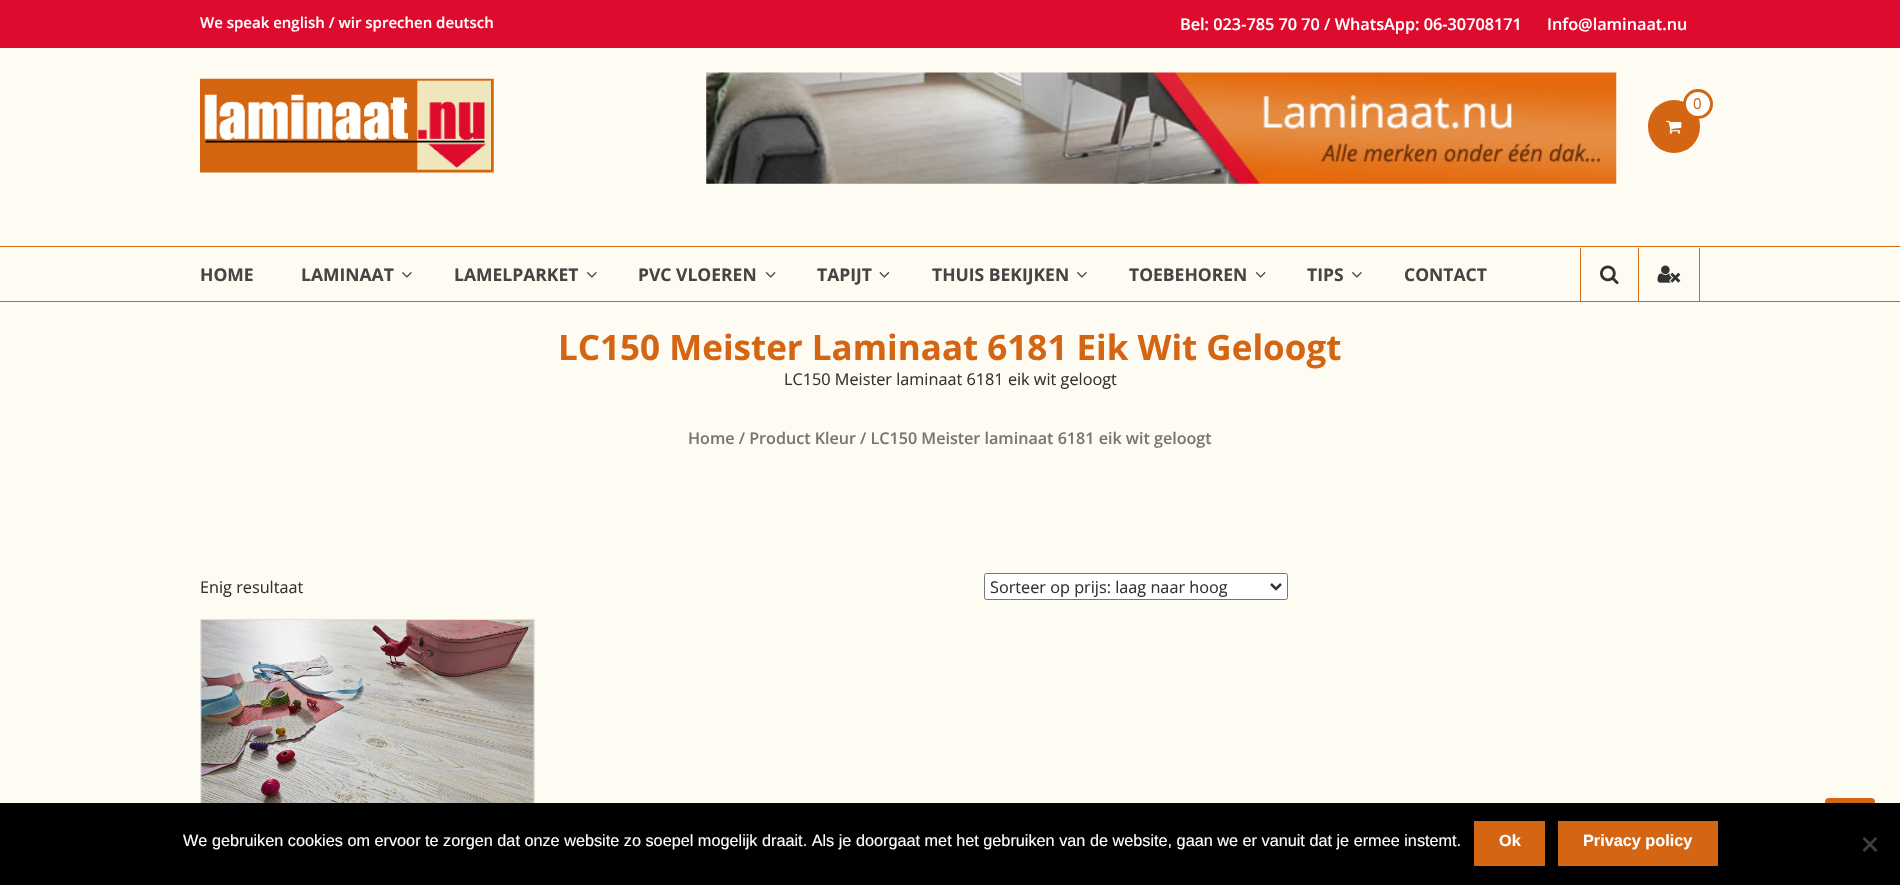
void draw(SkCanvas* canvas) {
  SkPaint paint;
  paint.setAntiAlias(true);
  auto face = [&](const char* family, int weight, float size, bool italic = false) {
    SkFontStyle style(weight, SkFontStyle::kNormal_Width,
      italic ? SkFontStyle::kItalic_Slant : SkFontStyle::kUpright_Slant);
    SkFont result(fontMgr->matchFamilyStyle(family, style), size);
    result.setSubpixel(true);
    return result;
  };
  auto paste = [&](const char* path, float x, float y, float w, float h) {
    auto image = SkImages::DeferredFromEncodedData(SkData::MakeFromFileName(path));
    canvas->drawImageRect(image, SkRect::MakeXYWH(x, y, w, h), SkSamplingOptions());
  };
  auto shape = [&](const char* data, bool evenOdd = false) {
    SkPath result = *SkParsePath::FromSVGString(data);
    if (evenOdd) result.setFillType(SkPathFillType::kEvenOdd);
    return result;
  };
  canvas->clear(0xfffdfbf2);
  paint.setColor(0xffde0b2e);
  canvas->drawRect(SkRect::MakeXYWH(0, 0, 1900, 48), paint);
  paste("img/1.png", 200, 78, 294, 95);
  paste("img/2.png", 706, 72, 911, 112);
  paint.setColor(0xffd46513);
  canvas->drawRoundRect(SkRect::MakeXYWH(1648, 100, 52, 53), 26, 26, paint);
  paint.setColor(0xffffffff);
  canvas->drawCircle(1698, 104, 13.5f, paint);
  paint.setStroke(true);
  paint.setStrokeWidth(3);
  paint.setColor(0xffd46513);
  canvas->drawCircle(1698, 104, 13.5f, paint);
  paste("img/3.png", 1666, 120, 16, 14);
  paint.setStroke(false);
  paint.setColor(0xffd46511);
  canvas->drawRect(SkRect::MakeXYWH(0, 246, 1900, 1), paint);
  canvas->drawRect(SkRect::MakeXYWH(0, 301, 1900, 1), paint);
  paste("img/4.png", 402, 272, 10, 6);
  paste("img/4.png", 587, 272, 10, 6);
  paste("img/5.png", 765, 272, 11, 6);
  paste("img/6.png", 879, 272, 11, 6);
  paste("img/4.png", 1077, 272, 10, 6);
  paste("img/5.png", 1255, 272, 11, 6);
  paste("img/4.png", 1352, 272, 10, 6);
  canvas->drawRect(SkRect::MakeXYWH(1580, 248, 1, 53), paint);
  paste("img/7.png", 1600, 265, 19, 20);
  canvas->drawRect(SkRect::MakeXYWH(1699, 248, 1, 53), paint);
  canvas->drawRect(SkRect::MakeXYWH(1638, 248, 1, 53), paint);
  paste("img/8.png", 1657, 265, 24, 18);
  paint.setColor(0xffffffff);
  canvas->drawRoundRect(SkRect::MakeXYWH(984.5f, 573.5f, 303, 26), 2, 2, paint);
  paint.setStroke(true);
  paint.setStrokeWidth(1);
  paint.setColor(0xff767676);
  canvas->drawRoundRect(SkRect::MakeXYWH(984.5f, 573.5f, 303, 26), 2, 2, paint);
  paint.setStrokeWidth(2.5f);
  paint.setColor(0xff333333);
  canvas->drawPath(shape("M1271 584L1276 589L1281 584"), paint);
  paint.setStrokeWidth(1);
  paint.setColor(0xffe1e1e1);
  canvas->drawRect(SkRect::MakeXYWH(200.5f, 619.5f, 334, 209), paint);
  paste("img/9.png", 201, 620, 333, 183);
  paint.setStroke(false);
  paint.setColor(0xffd46513);
  canvas->drawRoundRect(SkRect::MakeXYWH(1825, 798, 50, 50), 4, 4, paint);
  {
    const struct { float x, y, w, h; SkColor color; } items[] = {
      {0, 803, 1900, 82, 0xff000000},
      {1474, 821, 71, 45, 0xffd46513},
      {1558, 821, 160, 45, 0xffd46513},
    };
    for (auto [x, y, w, h, color] : items) {
      paint.setColor(color);
      canvas->drawRect(SkRect::MakeXYWH(x, y, w, h), paint);
    }
  }
  paint.setColor(0xff404040);
  canvas->drawPath(shape("M1875.5 837L1877.5 838.5L1864.5 852L1862.5 850Z"), paint);
  canvas->drawPath(shape("M1862.5 838.5L1864.5 837L1877.5 850L1875.5 852Z"), paint);
  auto f0 = face("Open Sans", 600, 15);
  paint.setColor(0xffffffff);
  canvas->drawString("We speak english / wir sprechen deutsch", 200, 28, f0, paint);
  auto f1 = face("Open Sans", 600, 16.25f);
  canvas->drawString("Bel: 023-785 70 70 / WhatsApp: 06-30708171", 1180, 30, f1, paint);
  canvas->drawString("Info@laminaat.nu", 1547, 30, f1, paint);
  auto f2 = face("Open Sans", 400, 15);
  paint.setColor(0xffd46513);
  canvas->drawString("0", 1693, 109, f2, paint);
  auto f3 = face("Open Sans", 700, 17.5f);
  paint.setColor(0xff454545);
  {
    const struct { const char* s; float x, y; } items[] = {
      {"HOME", 200, 281},
      {"LAMINAAT", 301, 281},
      {"LAMELPARKET", 454, 281},
      {"PVC VLOEREN", 638, 281},
      {"TAPIJT", 817, 281},
      {"THUIS BEKIJKEN", 932, 281},
      {"TOEBEHOREN", 1129, 281},
      {"TIPS", 1307, 281},
      {"CONTACT", 1404, 281},
    };
    for (auto [s, x, y] : items) {
      canvas->drawString(s, x, y, f3, paint);
    }
  }
  auto f4 = face("Open Sans", 700, 35);
  paint.setColor(0xffd46513);
  canvas->drawString("LC150 Meister Laminaat 6181 Eik Wit Geloogt", 558, 360, f4, paint);
  auto f5 = face("Open Sans", 400, 16.25f);
  paint.setColor(0xff333333);
  canvas->drawString("LC150 Meister laminaat 6181 eik wit geloogt", 784, 385, f5, paint);
  auto f6 = face("Open Sans", 600, 16.1f);
  paint.setColor(0xff767676);
  canvas->drawString("Home / Product Kleur / LC150 Meister laminaat 6181 eik wit geloogt", 688, 444, f6, paint);
  paint.setColor(0xff333333);
  canvas->drawString("Enig resultaat", 200, 593, f5, paint);
  canvas->drawString("Sorteer op prijs: laag naar hoog", 990, 593, f5, paint);
  auto f7 = face("Liberation Sans", 400, 16.25f);
  paint.setColor(0xffffffff);
  canvas->drawString("We gebruiken cookies om ervoor te zorgen dat onze website zo soepel mogelijk draait. Als je doorgaat met het gebruiken van de website, gaan we er vanuit dat je ermee instemt.", 183, 846, f7, paint);
  auto f8 = face("Liberation Sans", 700, 16.25f);
  canvas->drawString("Ok", 1499, 846, f8, paint);
  canvas->drawString("Privacy policy", 1583, 846, f8, paint);
}
